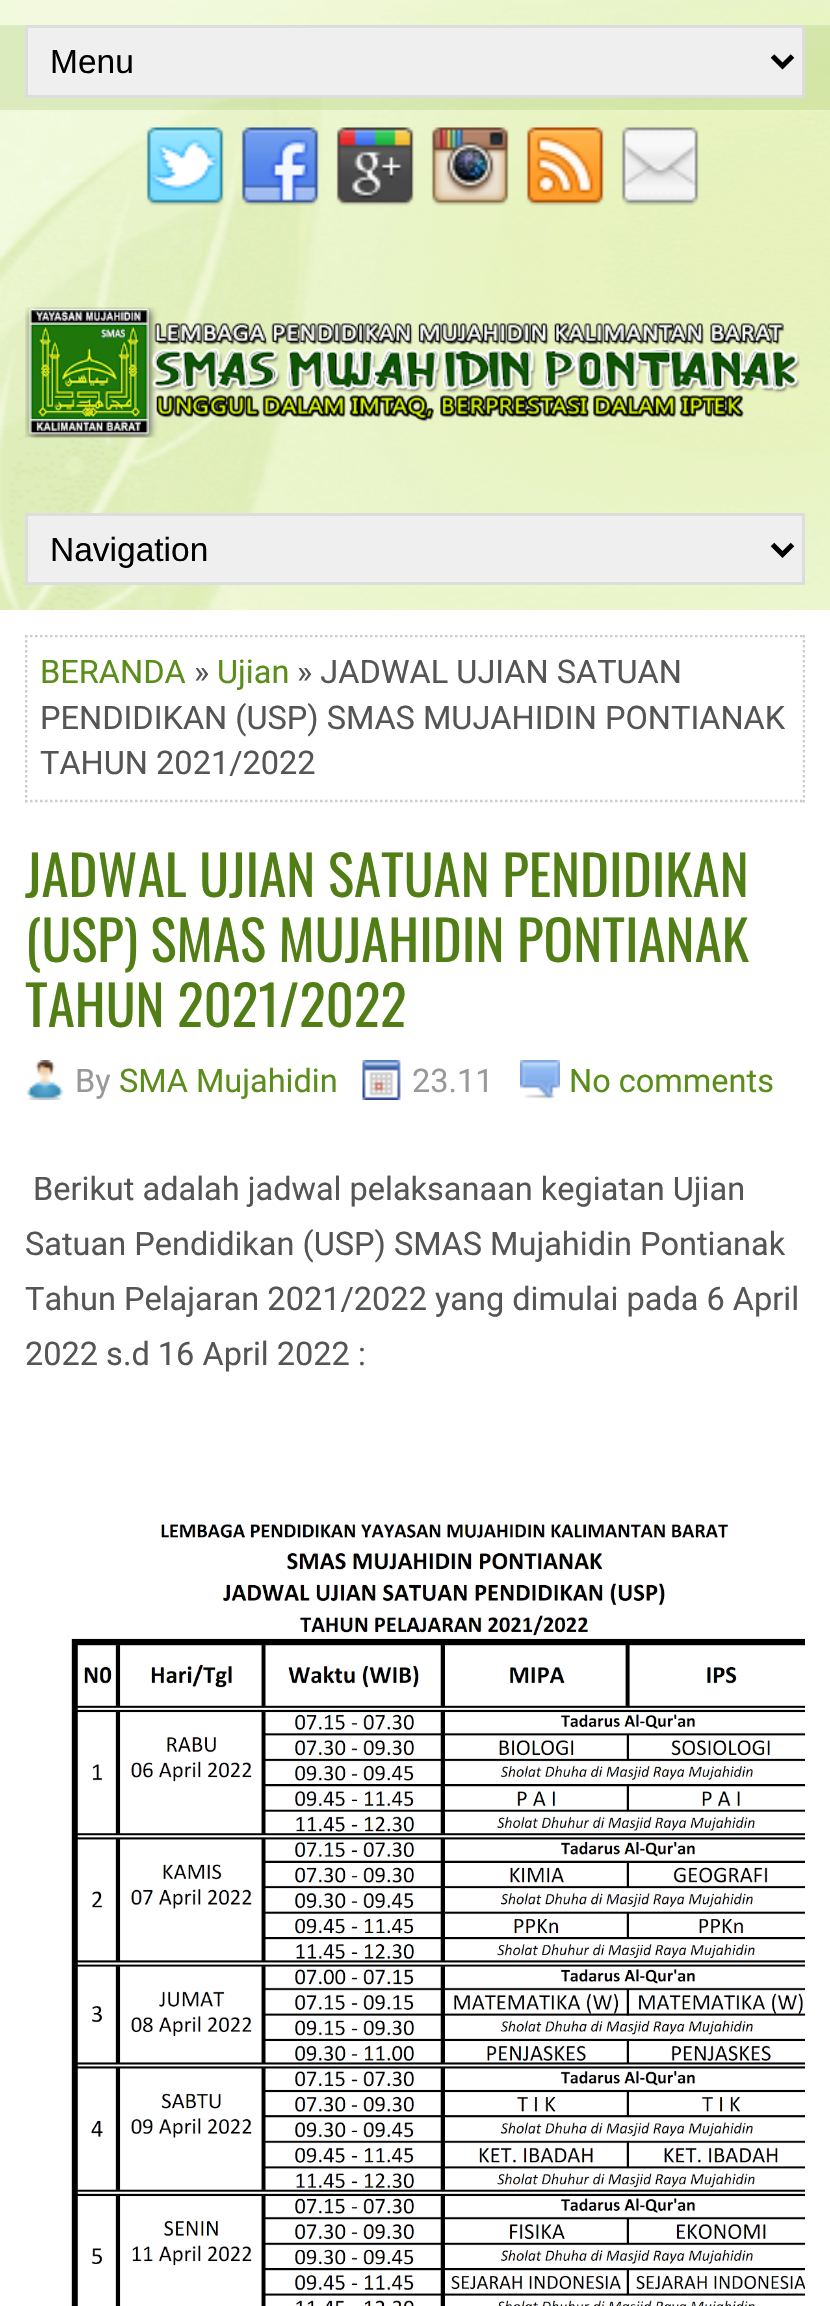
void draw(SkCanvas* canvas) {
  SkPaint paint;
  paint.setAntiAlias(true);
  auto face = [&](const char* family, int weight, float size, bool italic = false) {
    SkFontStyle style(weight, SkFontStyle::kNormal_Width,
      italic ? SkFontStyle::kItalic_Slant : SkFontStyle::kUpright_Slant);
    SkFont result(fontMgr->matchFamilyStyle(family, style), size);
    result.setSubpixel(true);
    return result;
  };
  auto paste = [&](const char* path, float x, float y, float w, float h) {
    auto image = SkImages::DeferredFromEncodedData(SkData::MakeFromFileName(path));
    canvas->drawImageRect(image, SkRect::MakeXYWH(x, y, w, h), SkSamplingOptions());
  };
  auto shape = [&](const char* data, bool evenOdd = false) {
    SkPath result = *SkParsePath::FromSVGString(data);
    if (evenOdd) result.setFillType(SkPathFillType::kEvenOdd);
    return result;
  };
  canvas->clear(0xffffffff);
  paste("img/1.png", 0, 0, 830, 610);
  paste("img/2.png", 0, 25, 830, 85);
  paint.setColor(0xffefefef);
  canvas->drawRect(SkRect::MakeXYWH(26.5f, 26.5f, 777, 70), paint);
  paint.setStroke(true);
  paint.setStrokeWidth(3);
  paint.setColor(0xffdddddd);
  canvas->drawRect(SkRect::MakeXYWH(26.5f, 26.5f, 777, 70), paint);
  paint.setStrokeWidth(5);
  paint.setColor(0xff000000);
  canvas->drawPath(shape("M772.5 56L782.5 66L792.5 56"), paint);
  paste("img/3.png", 146, 127, 78, 79);
  paste("img/4.png", 241, 127, 78, 79);
  paste("img/5.png", 336, 127, 78, 79);
  paste("img/6.png", 431, 127, 78, 79);
  paste("img/7.png", 526, 127, 78, 79);
  paste("img/8.png", 621, 127, 78, 79);
  paste("img/9.png", 25, 307, 775, 131);
  paint.setStroke(false);
  paint.setColor(0xffefefef);
  canvas->drawRect(SkRect::MakeXYWH(26.5f, 514.5f, 777, 69), paint);
  paint.setStroke(true);
  paint.setStrokeWidth(3);
  paint.setColor(0xffdddddd);
  canvas->drawRect(SkRect::MakeXYWH(26.5f, 514.5f, 777, 69), paint);
  paint.setStrokeWidth(5);
  paint.setColor(0xff000000);
  canvas->drawPath(shape("M772.5 544.5L782.5 554.5L792.5 544.5"), paint);
  canvas->save();
  canvas->clipRect(SkRect::MakeXYWH(25, 635, 780, 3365));
  paint.setStrokeWidth(2.5f);
  paint.setColor(0xffcccccc);
  paint.setPathEffect(SkDashPathEffect::Make({{2.5f, 2.5f}}, 0));
  canvas->drawPath(shape("M25 636H805"), paint);
  paint.setPathEffect(nullptr);
  paint.setPathEffect(SkDashPathEffect::Make({{2.5f, 2.5f}}, 0));
  canvas->drawPath(shape("M804 635V802.5"), paint);
  paint.setPathEffect(nullptr);
  canvas->restore();
  paint.setPathEffect(SkDashPathEffect::Make({{2.5f, 2.5f}}, 0));
  canvas->drawPath(shape("M25 801H805"), paint);
  paint.setPathEffect(nullptr);
  canvas->save();
  canvas->clipRect(SkRect::MakeXYWH(25, 635, 780, 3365));
  paint.setPathEffect(SkDashPathEffect::Make({{2.5f, 2.5f}}, 0));
  canvas->drawPath(shape("M26 635V802.5"), paint);
  paint.setPathEffect(nullptr);
  canvas->restore();
  paste("img/10.png", 26, 1060, 38, 40);
  paste("img/11.png", 362, 1060, 39, 40);
  paste("img/12.png", 520, 1060, 40, 39);
  paste("img/13.png", 71, 1524, 734, 782);
  auto f0 = face("Liberation Sans", 400, 33.5f);
  paint.setStroke(false);
  paint.setColor(0xff000000);
  canvas->drawString("Menu", 50, 73, f0, paint);
  canvas->drawString("Navigation", 50, 561, f0, paint);
  auto f1 = face("Roboto", 400, 32.5f);
  paint.setColor(0xff5b8d1b);
  canvas->drawString("BERANDA", 40, 683, f1, paint);
  paint.setColor(0xff555555);
  canvas->drawString("»", 194, 683, f1, paint);
  paint.setColor(0xff5b8d1b);
  canvas->drawString("Ujian", 217, 683, f1, paint);
  paint.setColor(0xff555555);
  {
    const struct { const char* s; float x, y; } items[] = {
      {"» JADWAL UJIAN SATUAN", 297, 683},
      {"PENDIDIKAN (USP) SMAS MUJAHIDIN PONTIANAK", 40, 729},
      {"TAHUN 2021/2022", 40, 774},
    };
    for (auto [s, x, y] : items) {
      canvas->drawString(s, x, y, f1, paint);
    }
  }
  auto f2 = face("Oswald", 400, 55);
  paint.setColor(0xff517f15);
  {
    const struct { const char* s; float x, y; } items[] = {
      {"JADWAL UJIAN SATUAN PENDIDIKAN", 25, 897},
      {"(USP) SMAS MUJAHIDIN PONTIANAK", 25, 962},
      {"TAHUN 2021/2022", 25, 1027},
    };
    for (auto [s, x, y] : items) {
      canvas->drawString(s, x, y, f2, paint);
    }
  }
  paint.setColor(0xff999999);
  canvas->drawString("By", 75, 1092, f1, paint);
  paint.setColor(0xff5b8d1b);
  canvas->drawString("SMA Mujahidin", 119, 1092, f1, paint);
  paint.setColor(0xff999999);
  canvas->drawString("23.11", 412, 1092, f1, paint);
  paint.setColor(0xff5b8d1b);
  canvas->drawString("No comments", 569, 1092, f1, paint);
  paint.setColor(0xff555555);
  {
    const struct { const char* s; float x, y; } items[] = {
      {"Berikut adalah jadwal pelaksanaan kegiatan Ujian", 33, 1200},
      {"Satuan Pendidikan (USP) SMAS Mujahidin Pontianak", 25, 1255},
      {"Tahun Pelajaran 2021/2022 yang dimulai pada 6 April", 25, 1310},
      {"2022 s.d 16 April 2022 :", 25, 1365},
    };
    for (auto [s, x, y] : items) {
      canvas->drawString(s, x, y, f1, paint);
    }
  }
}
